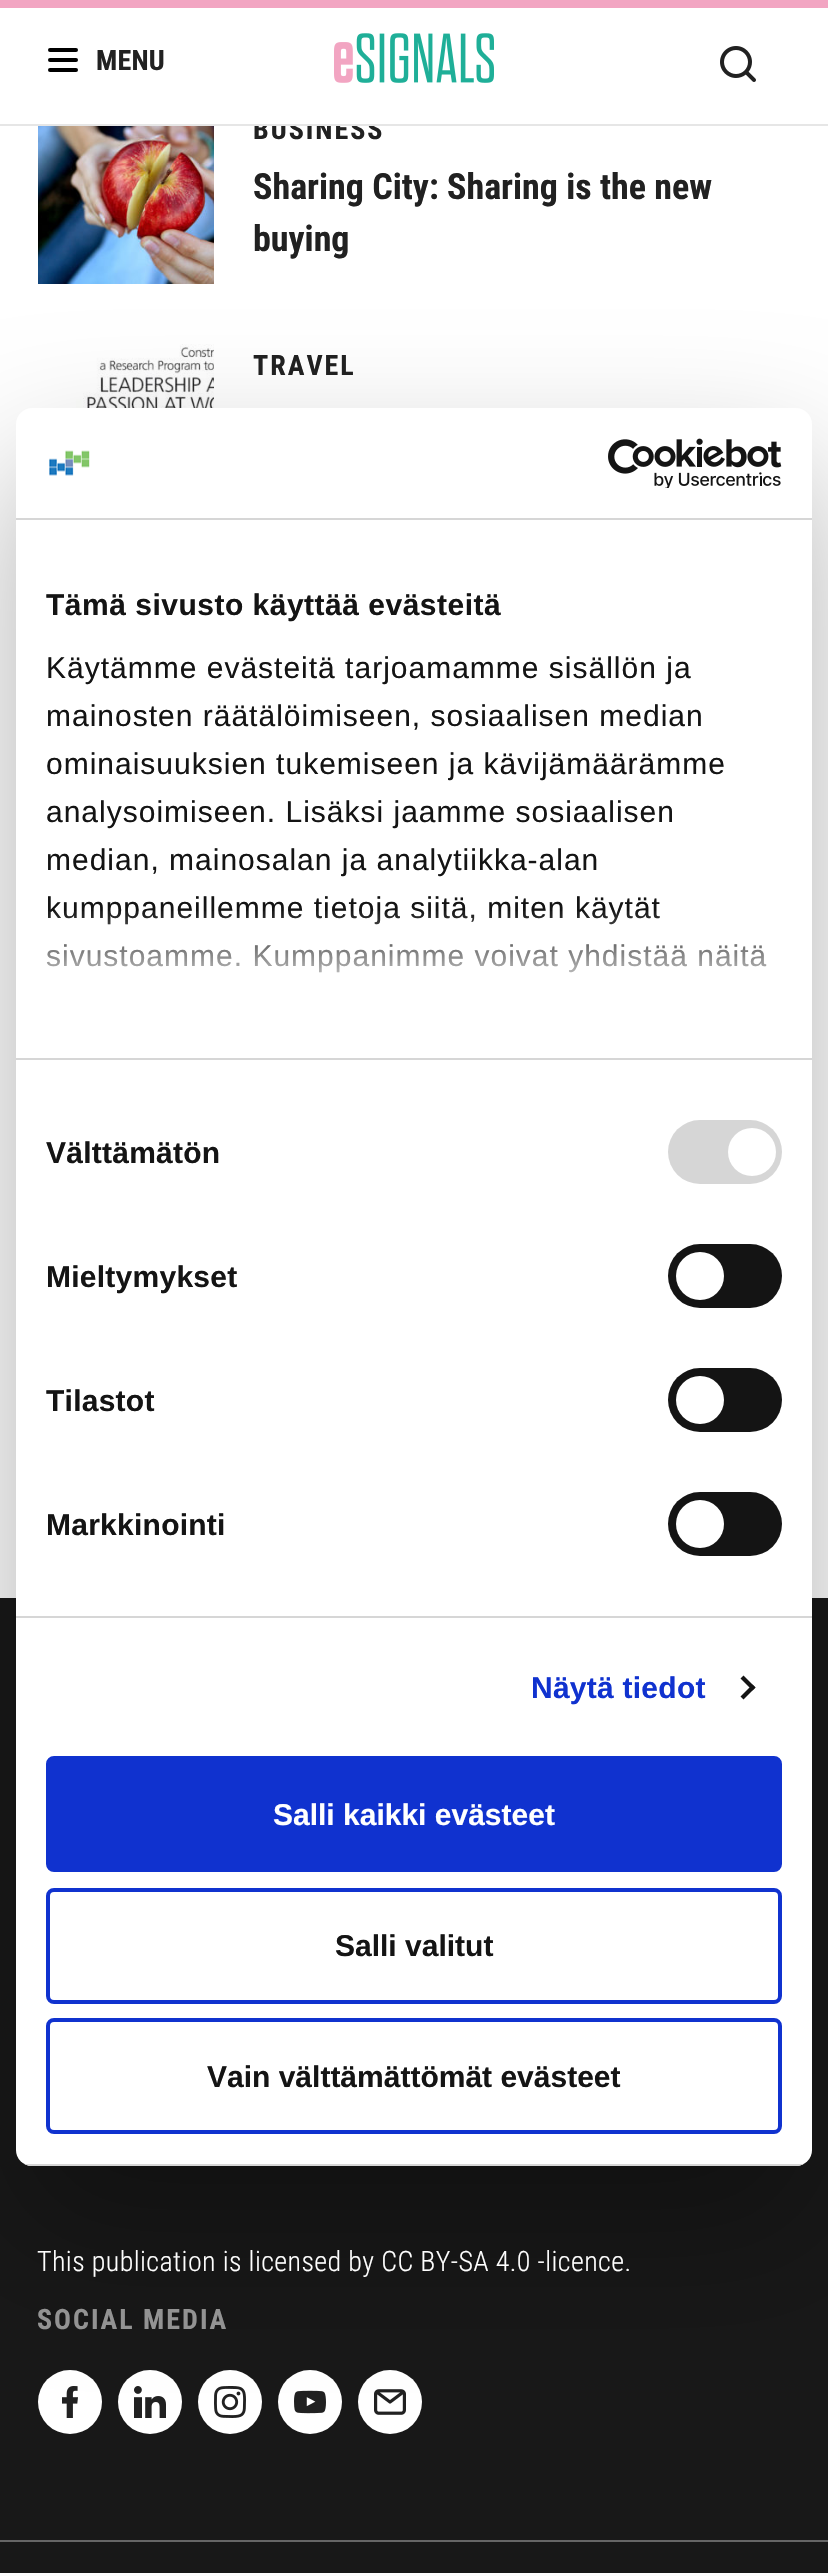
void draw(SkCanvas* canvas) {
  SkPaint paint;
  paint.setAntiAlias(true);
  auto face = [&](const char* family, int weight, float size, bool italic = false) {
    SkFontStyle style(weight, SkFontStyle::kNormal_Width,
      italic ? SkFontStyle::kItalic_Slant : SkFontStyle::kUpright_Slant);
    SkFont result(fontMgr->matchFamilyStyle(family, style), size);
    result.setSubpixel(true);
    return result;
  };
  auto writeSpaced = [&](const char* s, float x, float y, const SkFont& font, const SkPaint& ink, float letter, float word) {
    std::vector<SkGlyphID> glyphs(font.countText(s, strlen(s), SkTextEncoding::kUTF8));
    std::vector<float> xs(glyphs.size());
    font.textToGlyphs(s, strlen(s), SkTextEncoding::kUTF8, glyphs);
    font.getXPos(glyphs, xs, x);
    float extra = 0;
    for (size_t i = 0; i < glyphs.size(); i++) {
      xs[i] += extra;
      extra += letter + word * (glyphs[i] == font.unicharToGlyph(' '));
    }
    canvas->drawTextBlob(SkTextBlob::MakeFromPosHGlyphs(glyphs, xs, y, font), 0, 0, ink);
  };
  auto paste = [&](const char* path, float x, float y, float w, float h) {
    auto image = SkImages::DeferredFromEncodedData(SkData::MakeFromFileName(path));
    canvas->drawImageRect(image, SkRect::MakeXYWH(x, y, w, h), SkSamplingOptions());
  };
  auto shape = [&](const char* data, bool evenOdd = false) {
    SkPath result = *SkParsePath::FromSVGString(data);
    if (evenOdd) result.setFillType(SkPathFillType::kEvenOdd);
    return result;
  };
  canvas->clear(0xffffffff);
  paint.setColor(0xfff2a5c2);
  canvas->drawRect(SkRect::MakeXYWH(0, 0, 828, 8), paint);
  paint.setColor(0xff000000);
  canvas->drawRoundRect(SkRect::MakeXYWH(48, 48, 30, 4), 2, 2, paint);
  canvas->drawRoundRect(SkRect::MakeXYWH(48, 58, 30, 4), 2, 2, paint);
  canvas->drawRoundRect(SkRect::MakeXYWH(48, 68, 30, 4), 2, 2, paint);
  paste("img/1.png", 334, 33, 160, 50);
  paste("img/2.png", 720, 46, 36, 36);
  paste("img/3.png", 38, 126, 176, 158);
  paste("img/4.png", 38, 344, 176, 64);
  paint.setColor(0xff181818);
  canvas->drawRect(SkRect::MakeXYWH(0, 1598, 828, 975), paint);
  paint.setColor(0xff666666);
  canvas->drawRect(SkRect::MakeXYWH(0, 2540, 828, 2), paint);
  paint.setColor(0xffffffff);
  canvas->drawCircle(70, 2402, 32, paint);
  paste("img/5.png", 62, 2386, 16, 32);
  canvas->drawCircle(150, 2402, 32, paint);
  paste("img/6.png", 134, 2386, 32, 32);
  canvas->drawCircle(230, 2402, 32, paint);
  paste("img/7.png", 214, 2386, 32, 32);
  canvas->drawCircle(310, 2402, 32, paint);
  paste("img/8.png", 294, 2390, 32, 24);
  canvas->drawCircle(390, 2402, 32, paint);
  paste("img/9.png", 374, 2389, 32, 26);
  paint.setColor(0x4d000000);
  paint.setMaskFilter(SkMaskFilter::MakeBlur(kNormal_SkBlurStyle, 68));
  canvas->drawRoundRect(SkRect::MakeXYWH(16, 472, 796, 1758), 16, 16, paint);
  paint.setMaskFilter(nullptr);
  paint.setColor(0xffffffff);
  canvas->drawRoundRect(SkRect::MakeXYWH(16, 408, 796, 1758), 16, 16, paint);
  paint.setColor(0xffd6d6d6);
  canvas->drawRect(SkRect::MakeXYWH(16, 518, 796, 2), paint);
  paste("img/10.png", 49, 450, 41, 26);
  paste("img/11.png", 608, 438, 174, 50);
  canvas->drawRect(SkRect::MakeXYWH(16, 1058, 796, 2), paint);
  canvas->drawRect(SkRect::MakeXYWH(16, 1616, 796, 2), paint);
  canvas->drawRoundRect(SkRect::MakeXYWH(668, 1120, 114, 64), 32, 32, paint);
  paint.setColor(0xffffffff);
  canvas->drawCircle(752, 1152, 24, paint);
  paint.setColor(0xff141414);
  canvas->drawRoundRect(SkRect::MakeXYWH(668, 1244, 114, 64), 32, 32, paint);
  paint.setColor(0xffffffff);
  canvas->drawCircle(700, 1276, 24, paint);
  paint.setColor(0xff141414);
  canvas->drawRoundRect(SkRect::MakeXYWH(668, 1368, 114, 64), 32, 32, paint);
  paint.setColor(0xffffffff);
  canvas->drawCircle(700, 1400, 24, paint);
  paint.setColor(0xff141414);
  canvas->drawRoundRect(SkRect::MakeXYWH(668, 1492, 114, 64), 32, 32, paint);
  paint.setColor(0xffffffff);
  canvas->drawCircle(700, 1524, 24, paint);
  paint.setColor(0xff141414);
  canvas->drawPath(shape("M743.5 1675.5L755.5 1687.5L752.5 1690.5L740.5 1678.5Z"), paint);
  canvas->drawPath(shape("M752.5 1684.5L755.5 1687.5L743.5 1699.5L740.5 1696.5Z"), paint);
  canvas->save();
  canvas->clipPath(shape("M32 408H796C805 408 812 415 812 424V2150C812 2159 805 2166 796 2166H32C23 2166 16 2159 16 2150V424C16 415 23 408 32 408Z"), true);
  paint.setColor(0xffd6d6d6);
  canvas->drawRect(SkRect::MakeXYWH(16, 2164, 796, 2), paint);
  canvas->restore();
  paint.setColor(0xff1032cf);
  canvas->drawRoundRect(SkRect::MakeXYWH(48, 1758, 732, 112), 6, 6, paint);
  paint.setStroke(true);
  paint.setStrokeWidth(4);
  canvas->drawRoundRect(SkRect::MakeXYWH(48, 1758, 732, 112), 6, 6, paint);
  canvas->drawRoundRect(SkRect::MakeXYWH(48, 1890, 732, 112), 6, 6, paint);
  canvas->drawRoundRect(SkRect::MakeXYWH(48, 2020, 732, 112), 6, 6, paint);
  auto f0 = face("Roboto Condensed", 700, 28);
  paint.setStroke(false);
  paint.setColor(0xff212121);
  writeSpaced("MENU", 96, 70, f0, paint, 0.25f, 0);
  writeSpaced("BUSINESS", 253, 139, f0, paint, 2, 0);
  paint.setColor(0xffe6e6e6);
  canvas->drawRect(SkRect::MakeXYWH(0, 124, 828, 2), paint);
  paint.setColor(0xffffffff);
  canvas->drawRect(SkRect::MakeXYWH(254, 118, 128, 6), paint);
  auto f1 = face("Roboto Condensed", 700, 36);
  paint.setColor(0xff212121);
  canvas->drawString("Sharing City: Sharing is the new", 253, 199, f1, paint);
  canvas->drawString("buying", 253, 251, f1, paint);
  writeSpaced("TRAVEL", 253, 375, f0, paint, 2, 0);
  auto f2 = face("Roboto Condensed", 300, 28);
  paint.setColor(0xffffffff);
  writeSpaced("This publication is licensed by CC BY-SA 4.0 -licence.", 37, 2271, f2, paint, 0.4f, 0);
  paint.setColor(0xff939393);
  writeSpaced("SOCIAL MEDIA", 37, 2329, f0, paint, 2, 0);
  auto f3 = face("Liberation Sans", 700, 30);
  paint.setColor(0xff141414);
  writeSpaced("Tämä sivusto käyttää evästeitä", 46, 615, f3, paint, 0.5f, 0);
  auto f4 = face("Liberation Sans", 400, 30);
  {
    const struct { const char* s; float x, y; } items[] = {
      {"Käytämme evästeitä tarjoamamme sisällön ja", 46, 678},
      {"mainosten räätälöimiseen, sosiaalisen median", 46, 726},
      {"ominaisuuksien tukemiseen ja kävijämäärämme", 46, 774},
      {"analysoimiseen. Lisäksi jaamme sosiaalisen", 46, 822},
      {"median, mainosalan ja analytiikka-alan", 46, 870},
      {"kumppaneillemme tietoja siitä, miten käytät", 46, 918},
      {"sivustoamme. Kumppanimme voivat yhdistää näitä", 46, 966},
    };
    for (auto [s, x, y] : items) {
      writeSpaced(s, x, y, f4, paint, 1, 0);
    }
  }
  {
    const SkColor colors[] = {0xffffffff, 0xccffffff, 0x00ffffff};
    const float stops[] = {0, 0.5f, 1};
    const SkPoint ends[] = {{401, 1059}, {401, 909}};
    paint.setShader(SkGradientShader::MakeLinear(ends, colors, stops, 3, SkTileMode::kClamp));
    paint.setAlpha(255);
  }
  canvas->drawRect(SkRect::MakeXYWH(46, 911, 721, 62), paint);
  paint.setShader(nullptr);
  paint.setColor(0xff141414);
  {
    const struct { const char* s; float x, y; } items[] = {
      {"Välttämätön", 46, 1163},
      {"Mieltymykset", 46, 1287},
      {"Tilastot", 46, 1411},
      {"Markkinointi", 46, 1535},
    };
    for (auto [s, x, y] : items) {
      writeSpaced(s, x, y, f3, paint, 0.25f, 0);
    }
  }
  paint.setColor(0xff1032cf);
  writeSpaced("Näytä tiedot", 531, 1698, f3, paint, 0.25f, 0);
  paint.setColor(0xffffffff);
  canvas->drawString("Salli kaikki evästeet", 273, 1825, f3, paint);
  paint.setColor(0xff141414);
  canvas->drawString("Salli valitut", 335, 1956, f3, paint);
  canvas->drawString("Vain välttämättömät evästeet", 207, 2087, f3, paint);
}
